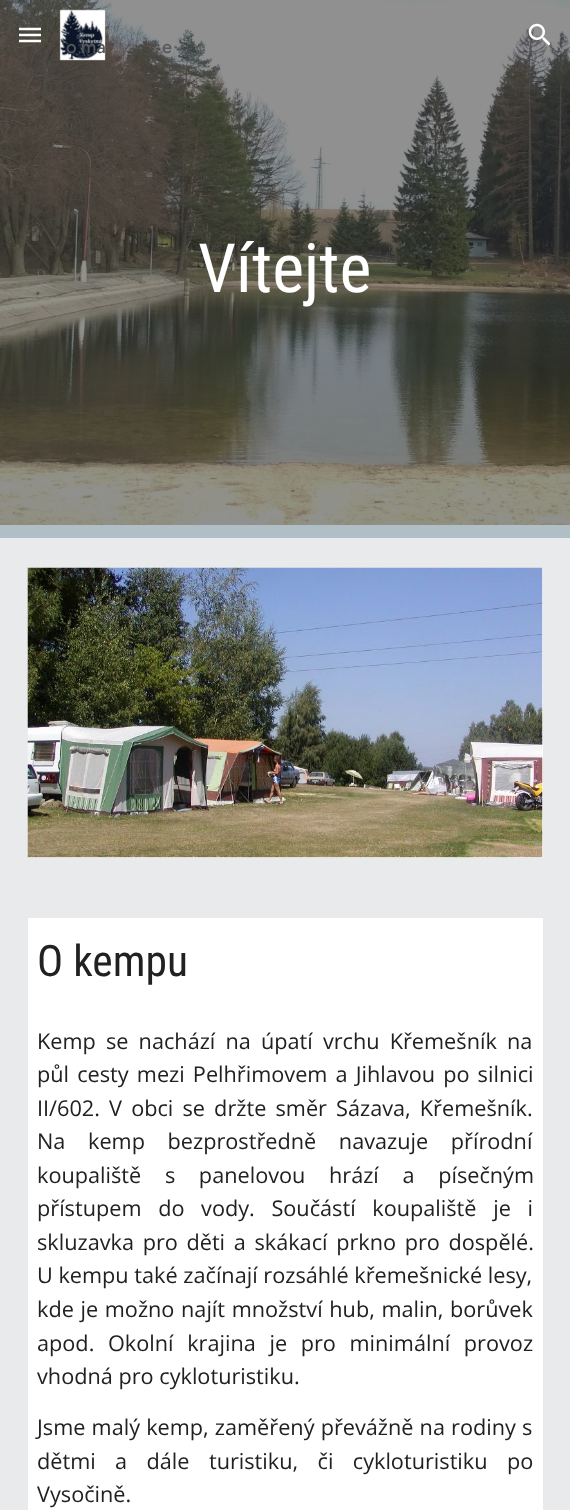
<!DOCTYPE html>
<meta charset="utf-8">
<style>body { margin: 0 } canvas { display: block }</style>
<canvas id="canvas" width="570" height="1510"></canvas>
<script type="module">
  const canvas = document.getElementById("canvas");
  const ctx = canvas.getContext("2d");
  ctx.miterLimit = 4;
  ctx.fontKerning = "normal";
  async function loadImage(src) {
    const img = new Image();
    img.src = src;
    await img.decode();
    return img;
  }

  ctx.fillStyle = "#e8eaeb";
  ctx.fillRect(0, 0, 570, 1510);
  ctx.drawImage(await loadImage("img3.png"), 0, 0, 570, 525);
  ctx.drawImage(await loadImage("img1.png"), 59, 9, 47, 52);
  ctx.font = "500 17.5px Google Sans";
  ctx.fillStyle = "#57585a";
  ctx.fillText("o ma", 66, 53);
  ctx.fillText("e", 162, 53);
  ctx.beginPath();
  ctx.moveTo(19, 29);
  ctx.lineTo(41, 29);
  ctx.moveTo(19, 35);
  ctx.lineTo(41, 35);
  ctx.moveTo(19, 41);
  ctx.lineTo(41, 41);
  ctx.strokeStyle = "#ffffff";
  ctx.lineWidth = 2.5;
  ctx.stroke();
  ctx.drawImage(await loadImage("img2.png"), 528, 23, 23, 23);
  ctx.fillStyle = "#b0bec5";
  ctx.fillRect(0, 525, 570, 13);
  ctx.font = "68px Roboto Condensed";
  ctx.fillStyle = "#ffffff";
  ctx.fillText("Vítejte", 198, 292);
  ctx.fillRect(28, 568, 515, 290);
  ctx.drawImage(await loadImage("img4.png"), 27, 567, 516, 291);
  ctx.fillRect(28, 918, 515, 592);
  ctx.font = "43.5px Roboto Condensed";
  ctx.fillStyle = "#212121";
  ctx.fillText("O kempu", 37, 976);
  ctx.wordSpacing = "4.5px";
  ctx.font = "21.7px Open Sans";
  ctx.fillText("Kemp se nachází na úpatí vrchu Křemešník na", 37, 1049);
  ctx.wordSpacing = "2.5px";
  ctx.fillText("půl cesty mezi Pelhřimovem a Jihlavou po silnici", 37, 1082);
  ctx.wordSpacing = "3.5px";
  ctx.fillText("II/602. V obci se držte směr Sázava, Křemešník.", 37, 1116);
  ctx.wordSpacing = "17px";
  ctx.fillText("Na kemp bezprostředně navazuje přírodní", 37, 1149);
  ctx.wordSpacing = "18px";
  ctx.fillText("koupaliště s panelovou hrází a písečným", 37, 1183);
  ctx.wordSpacing = "11px";
  ctx.fillText("přístupem do vody. Součástí koupaliště je i", 37, 1216);
  ctx.wordSpacing = "3px";
  ctx.fillText("skluzavka pro děti a skákací prkno pro dospělé.", 37, 1250);
  ctx.wordSpacing = "0px";
  ctx.fillText("U kempu také začínají rozsáhlé křemešnické lesy,", 37, 1283);
  ctx.wordSpacing = "1px";
  ctx.fillText("kde je možno najít množství hub, malin, borůvek", 37, 1317);
  ctx.wordSpacing = "8px";
  ctx.fillText("apod. Okolní krajina je pro minimální provoz", 37, 1351);
  ctx.wordSpacing = "0px";
  ctx.fillText("vhodná pro cykloturistiku.", 37, 1384);
  ctx.wordSpacing = "0.5px";
  ctx.fillText("Jsme malý kemp, zaměřený převážně na rodiny s", 37, 1435);
  ctx.wordSpacing = "13.75px";
  ctx.fillText("dětmi a dále turistiku, či cykloturistiku po", 37, 1469);
  ctx.wordSpacing = "0px";
  ctx.fillText("Vysočině.", 37, 1502);
</script>
